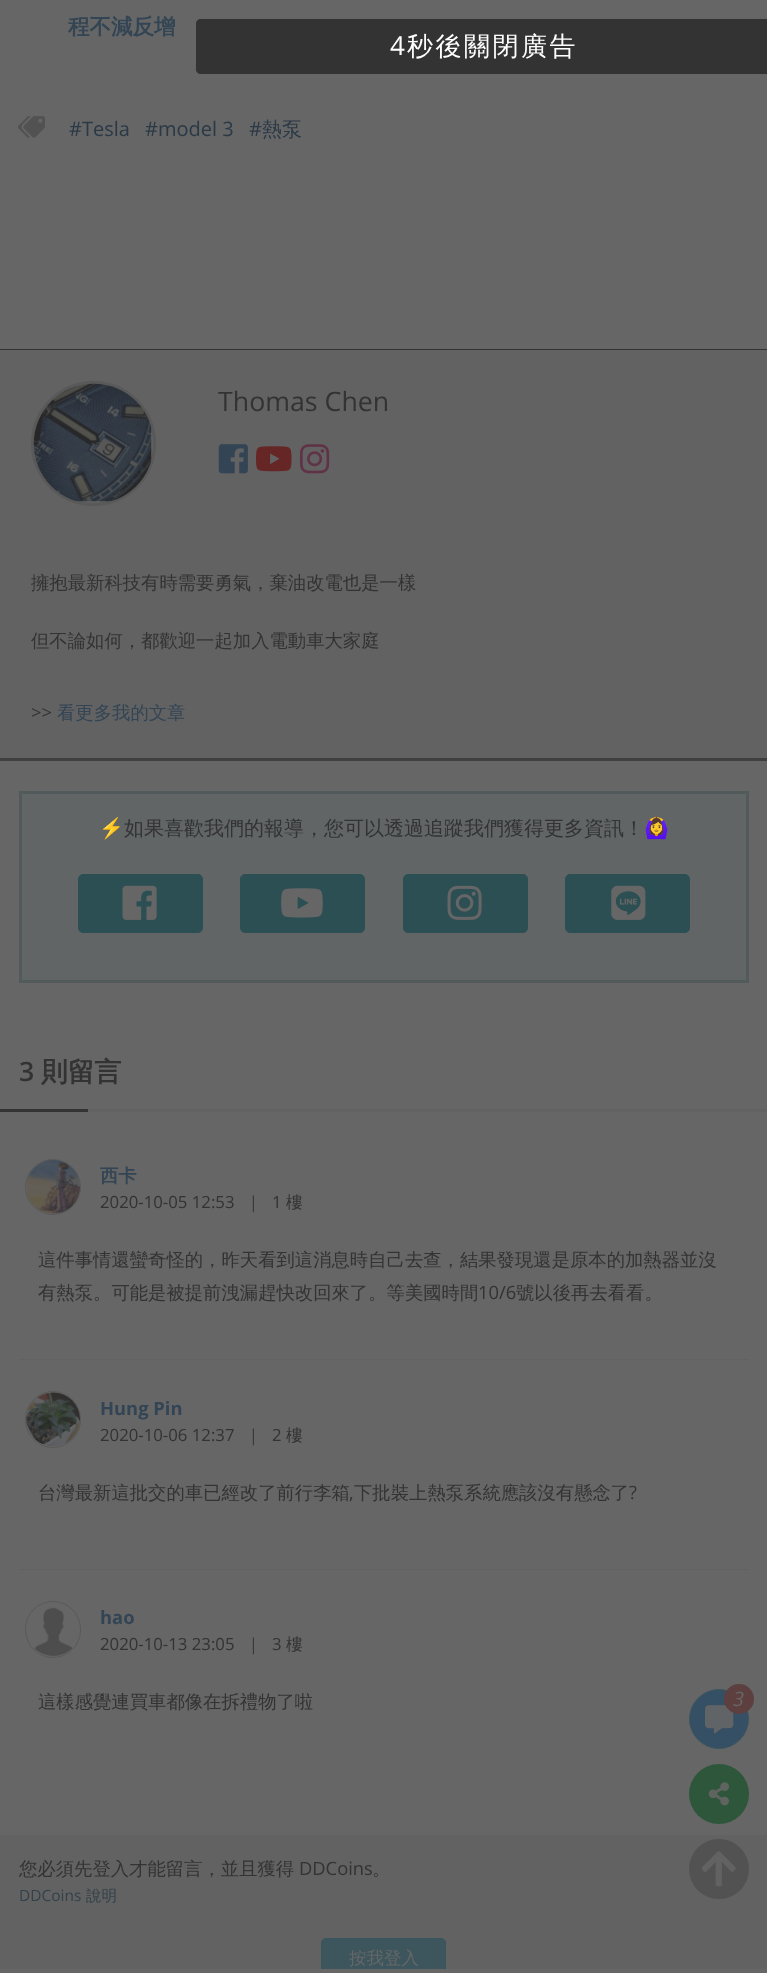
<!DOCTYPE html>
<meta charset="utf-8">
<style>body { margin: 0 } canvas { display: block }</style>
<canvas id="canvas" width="767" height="1973"></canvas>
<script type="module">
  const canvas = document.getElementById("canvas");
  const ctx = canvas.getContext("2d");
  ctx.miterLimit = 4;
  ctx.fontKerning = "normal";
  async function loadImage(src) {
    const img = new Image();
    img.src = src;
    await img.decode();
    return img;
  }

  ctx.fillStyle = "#666666";
  ctx.fillRect(0, 0, 767, 1973);
  ctx.font = "bold 21.5px WenQuanYi Zen Hei";
  ctx.fillStyle = "#334554";
  ctx.fillText("程不減反增", 68, 34);
  ctx.fillStyle = "#333333";
  ctx.beginPath();
  ctx.moveTo(201, 19);
  ctx.lineTo(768, 19);
  ctx.lineTo(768, 74);
  ctx.lineTo(201, 74);
  ctx.bezierCurveTo(198, 74, 196, 72, 196, 69);
  ctx.lineTo(196, 24);
  ctx.bezierCurveTo(196, 21, 198, 19, 201, 19);
  ctx.closePath();
  ctx.fill();
  ctx.beginPath();
  ctx.roundRect(196.5, 19.5, 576, 54, 4.5);
  ctx.strokeStyle = "#333333";
  ctx.stroke();
  ctx.letterSpacing = "2.5px";
  ctx.font = "26px Open Sans";
  ctx.fillStyle = "#ffffff";
  ctx.fillText("4", 390, 55);
  ctx.font = "500 26px WenQuanYi Zen Hei";
  ctx.fillText("秒後關閉廣告", 407, 55);
  ctx.drawImage(await loadImage("img1.png"), 18, 116, 27, 22);
  ctx.letterSpacing = "0px";
  ctx.font = "20px Open Sans";
  ctx.fillStyle = "#2a3946";
  ctx.fillText("#Tesla", 69, 136);
  ctx.fillText("#model 3", 145, 136);
  ctx.fillText("#", 249, 136);
  ctx.font = "500 20px WenQuanYi Zen Hei";
  ctx.fillText("熱泵", 262, 136);
  ctx.fillStyle = "#626262";
  ctx.fillRect(0, 350, 767, 408);
  ctx.fillStyle = "#333333";
  ctx.fillRect(0, 349, 767, 1);
  ctx.fillStyle = "#404040";
  ctx.fillRect(0, 758, 767, 3);
  ctx.beginPath();
  ctx.arc(93.5, 443.5, 61, 0, Math.PI * 2);
  ctx.strokeStyle = "#595959";
  ctx.lineWidth = 3;
  ctx.stroke();
  ctx.drawImage(await loadImage("img2.png"), 33, 383, 119, 119);
  ctx.font = "26.75px Open Sans";
  ctx.fillStyle = "#333333";
  ctx.fillText("Thomas Chen", 218, 411);
  ctx.drawImage(await loadImage("img3.png"), 218, 444, 30, 30);
  ctx.drawImage(await loadImage("img4.png"), 256, 446, 36, 26);
  ctx.drawImage(await loadImage("img5.png"), 300, 444, 30, 30);
  ctx.font = "500 18.35px WenQuanYi Zen Hei";
  ctx.fillText("擁抱最新科技有時需要勇氣，棄油改電也是一樣", 31, 589);
  ctx.fillText("但不論如何，都歡迎一起加入電動車大家庭", 31, 647);
  ctx.font = "18.35px Open Sans";
  ctx.fillText(">>", 31, 719);
  ctx.font = "500 18.35px WenQuanYi Zen Hei";
  ctx.fillStyle = "#334554";
  ctx.fillText("看更多我的文章", 57, 719);
  ctx.fillStyle = "#616566";
  ctx.beginPath();
  ctx.rect(20.5, 792.5, 727, 189);
  ctx.fill();
  ctx.strokeStyle = "#535a5b";
  ctx.stroke();
  ctx.font = "20px Noto Color Emoji";
  ctx.fillStyle = "#333333";
  ctx.fillText("⚡", 99, 835);
  ctx.font = "500 20px WenQuanYi Zen Hei";
  ctx.fillText("如果喜歡我們的報導，您可以透過追蹤我們獲得更多資訊！", 124, 835);
  ctx.font = "20px Noto Color Emoji";
  ctx.fillText("🙆‍♀", 644, 835);
  ctx.fillStyle = "#2c4f54";
  ctx.beginPath();
  ctx.roundRect(78.5, 874.5, 124, 58, 4.5);
  ctx.fill();
  ctx.strokeStyle = "#2c4f54";
  ctx.lineWidth = 1;
  ctx.stroke();
  ctx.drawImage(await loadImage("img6.png"), 122, 885, 35, 35);
  ctx.beginPath();
  ctx.roundRect(240.5, 874.5, 124, 58, 4.5);
  ctx.fill();
  ctx.stroke();
  ctx.drawImage(await loadImage("img7.png"), 281, 888, 42, 30);
  ctx.beginPath();
  ctx.roundRect(403.5, 874.5, 124, 58, 4.5);
  ctx.fill();
  ctx.stroke();
  ctx.drawImage(await loadImage("img8.png"), 447, 885, 35, 35);
  ctx.beginPath();
  ctx.roundRect(565.5, 874.5, 124, 58, 4.5);
  ctx.fill();
  ctx.stroke();
  ctx.drawImage(await loadImage("img9.png"), 611, 885, 35, 35);
  ctx.fillStyle = "#626262";
  ctx.fillRect(88, 1109, 679, 3);
  ctx.font = "600 26.75px Open Sans";
  ctx.fillStyle = "#333333";
  ctx.fillText("3", 19, 1081);
  ctx.font = "bold 26.75px WenQuanYi Zen Hei";
  ctx.fillText("則留言", 41, 1081);
  ctx.fillRect(0, 1109, 88, 3);
  ctx.fillStyle = "#626262";
  ctx.fillRect(19, 1359, 730, 1);
  ctx.beginPath();
  ctx.arc(53, 1187, 27.5, 0, Math.PI * 2);
  ctx.strokeStyle = "#595959";
  ctx.stroke();
  ctx.drawImage(await loadImage("img10.png"), 26, 1160, 54, 54);
  ctx.font = "bold 18.35px WenQuanYi Zen Hei";
  ctx.fillStyle = "#334554";
  ctx.fillText("西卡", 100, 1182);
  ctx.font = "16.75px Open Sans";
  ctx.fillStyle = "#333333";
  ctx.fillText("2020-10-05 12:53", 100, 1208);
  ctx.font = "500 16.75px WenQuanYi Zen Hei";
  ctx.fillText("｜", 245, 1208);
  ctx.font = "16.75px Open Sans";
  ctx.fillText("1", 272, 1208);
  ctx.font = "500 16.75px WenQuanYi Zen Hei";
  ctx.fillText("樓", 286, 1208);
  ctx.font = "500 18.35px WenQuanYi Zen Hei";
  ctx.fillText("這件事情還蠻奇怪的，昨天看到這消息時自己去查，結果發現還是原本的加熱器並沒", 38, 1266);
  ctx.fillText("有熱泵。可能是被提前洩漏趕快改回來了。等美國時間", 38, 1299);
  ctx.font = "18.35px Open Sans";
  ctx.fillText("10/6", 478, 1299);
  ctx.font = "500 18.35px WenQuanYi Zen Hei";
  ctx.fillText("號以後再去看看。", 516, 1299);
  ctx.fillStyle = "#626262";
  ctx.fillRect(19, 1569, 730, 1);
  ctx.beginPath();
  ctx.roundRect(25.5, 1391.5, 55, 56, 27.5);
  ctx.stroke();
  ctx.drawImage(await loadImage("img11.png"), 26, 1392, 54, 55);
  ctx.font = "bold 18.35px Open Sans";
  ctx.fillStyle = "#334554";
  ctx.fillText("Hung Pin", 100, 1415);
  ctx.font = "16.75px Open Sans";
  ctx.fillStyle = "#333333";
  ctx.fillText("2020-10-06 12:37", 100, 1441);
  ctx.font = "500 16.75px WenQuanYi Zen Hei";
  ctx.fillText("｜", 245, 1441);
  ctx.font = "16.75px Open Sans";
  ctx.fillText("2", 272, 1441);
  ctx.font = "500 16.75px WenQuanYi Zen Hei";
  ctx.fillText("樓", 286, 1441);
  ctx.font = "500 18.35px WenQuanYi Zen Hei";
  ctx.fillText("台灣最新這批交的車已經改了前行李箱", 38, 1499);
  ctx.font = "18.35px Open Sans";
  ctx.fillText(",", 349, 1499);
  ctx.font = "500 18.35px WenQuanYi Zen Hei";
  ctx.fillText("下批裝上熱泵系統應該沒有懸念了", 354, 1499);
  ctx.font = "18.35px Open Sans";
  ctx.fillText("?", 629, 1499);
  ctx.beginPath();
  ctx.roundRect(25.5, 1601.5, 55, 56, 27.5);
  ctx.stroke();
  ctx.drawImage(await loadImage("img12.png"), 34, 1607, 39, 50);
  ctx.font = "bold 18.35px Open Sans";
  ctx.fillStyle = "#334554";
  ctx.fillText("hao", 100, 1624);
  ctx.font = "16.75px Open Sans";
  ctx.fillStyle = "#333333";
  ctx.fillText("2020-10-13 23:05", 100, 1650);
  ctx.font = "500 16.75px WenQuanYi Zen Hei";
  ctx.fillText("｜", 245, 1650);
  ctx.font = "16.75px Open Sans";
  ctx.fillText("3", 272, 1650);
  ctx.font = "500 16.75px WenQuanYi Zen Hei";
  ctx.fillText("樓", 286, 1650);
  ctx.font = "500 18.35px WenQuanYi Zen Hei";
  ctx.fillText("這樣感覺連買車都像在拆禮物了啦", 38, 1708);
  ctx.fillStyle = "#354f64";
  ctx.beginPath();
  ctx.arc(719, 1719, 29.5, 0, Math.PI * 2);
  ctx.fill();
  ctx.strokeStyle = "#3d565e";
  ctx.stroke();
  ctx.drawImage(await loadImage("img13.png"), 705, 1705, 29, 29);
  ctx.fillStyle = "#5e3f3f";
  ctx.beginPath();
  ctx.arc(739, 1699, 15, 0, Math.PI * 2);
  ctx.fill();
  ctx.font = "italic 20px Open Sans";
  ctx.fillStyle = "#666666";
  ctx.fillText("3", 733, 1706);
  ctx.fillStyle = "#2e563a";
  ctx.beginPath();
  ctx.arc(719, 1794, 30, 0, Math.PI * 2);
  ctx.fill();
  ctx.drawImage(await loadImage("img14.png"), 708, 1782, 21, 24);
  ctx.fillStyle = "#626262";
  ctx.fillRect(0, 1835, 767, 134);
  ctx.font = "500 18.35px WenQuanYi Zen Hei";
  ctx.fillStyle = "#333333";
  ctx.fillText("您必須先登入才能留言，並且獲得", 19, 1875);
  ctx.font = "18.35px Open Sans";
  ctx.fillText("DDCoins", 299, 1875);
  ctx.font = "500 18.35px WenQuanYi Zen Hei";
  ctx.fillText("。", 372, 1875);
  ctx.font = "15.5px Open Sans";
  ctx.fillStyle = "#33424a";
  ctx.fillText("DDCoins", 19, 1901);
  ctx.font = "500 15.5px WenQuanYi Zen Hei";
  ctx.fillText("說明", 86, 1901);
  ctx.fillStyle = "#3d565e";
  ctx.beginPath();
  ctx.roundRect(321.5, 1938.5, 124, 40, 4.5);
  ctx.fill();
  ctx.strokeStyle = "#38545d";
  ctx.stroke();
  ctx.font = "500 17.5px WenQuanYi Zen Hei";
  ctx.fillStyle = "#666666";
  ctx.fillText("按我登入", 349, 1964);
  ctx.fillRect(321, 1969, 125, 4);
  ctx.fillStyle = "#525252";
  ctx.beginPath();
  ctx.arc(719, 1869, 30, 0, Math.PI * 2);
  ctx.fill();
  ctx.drawImage(await loadImage("img15.png"), 701, 1851, 35, 36);
</script>
